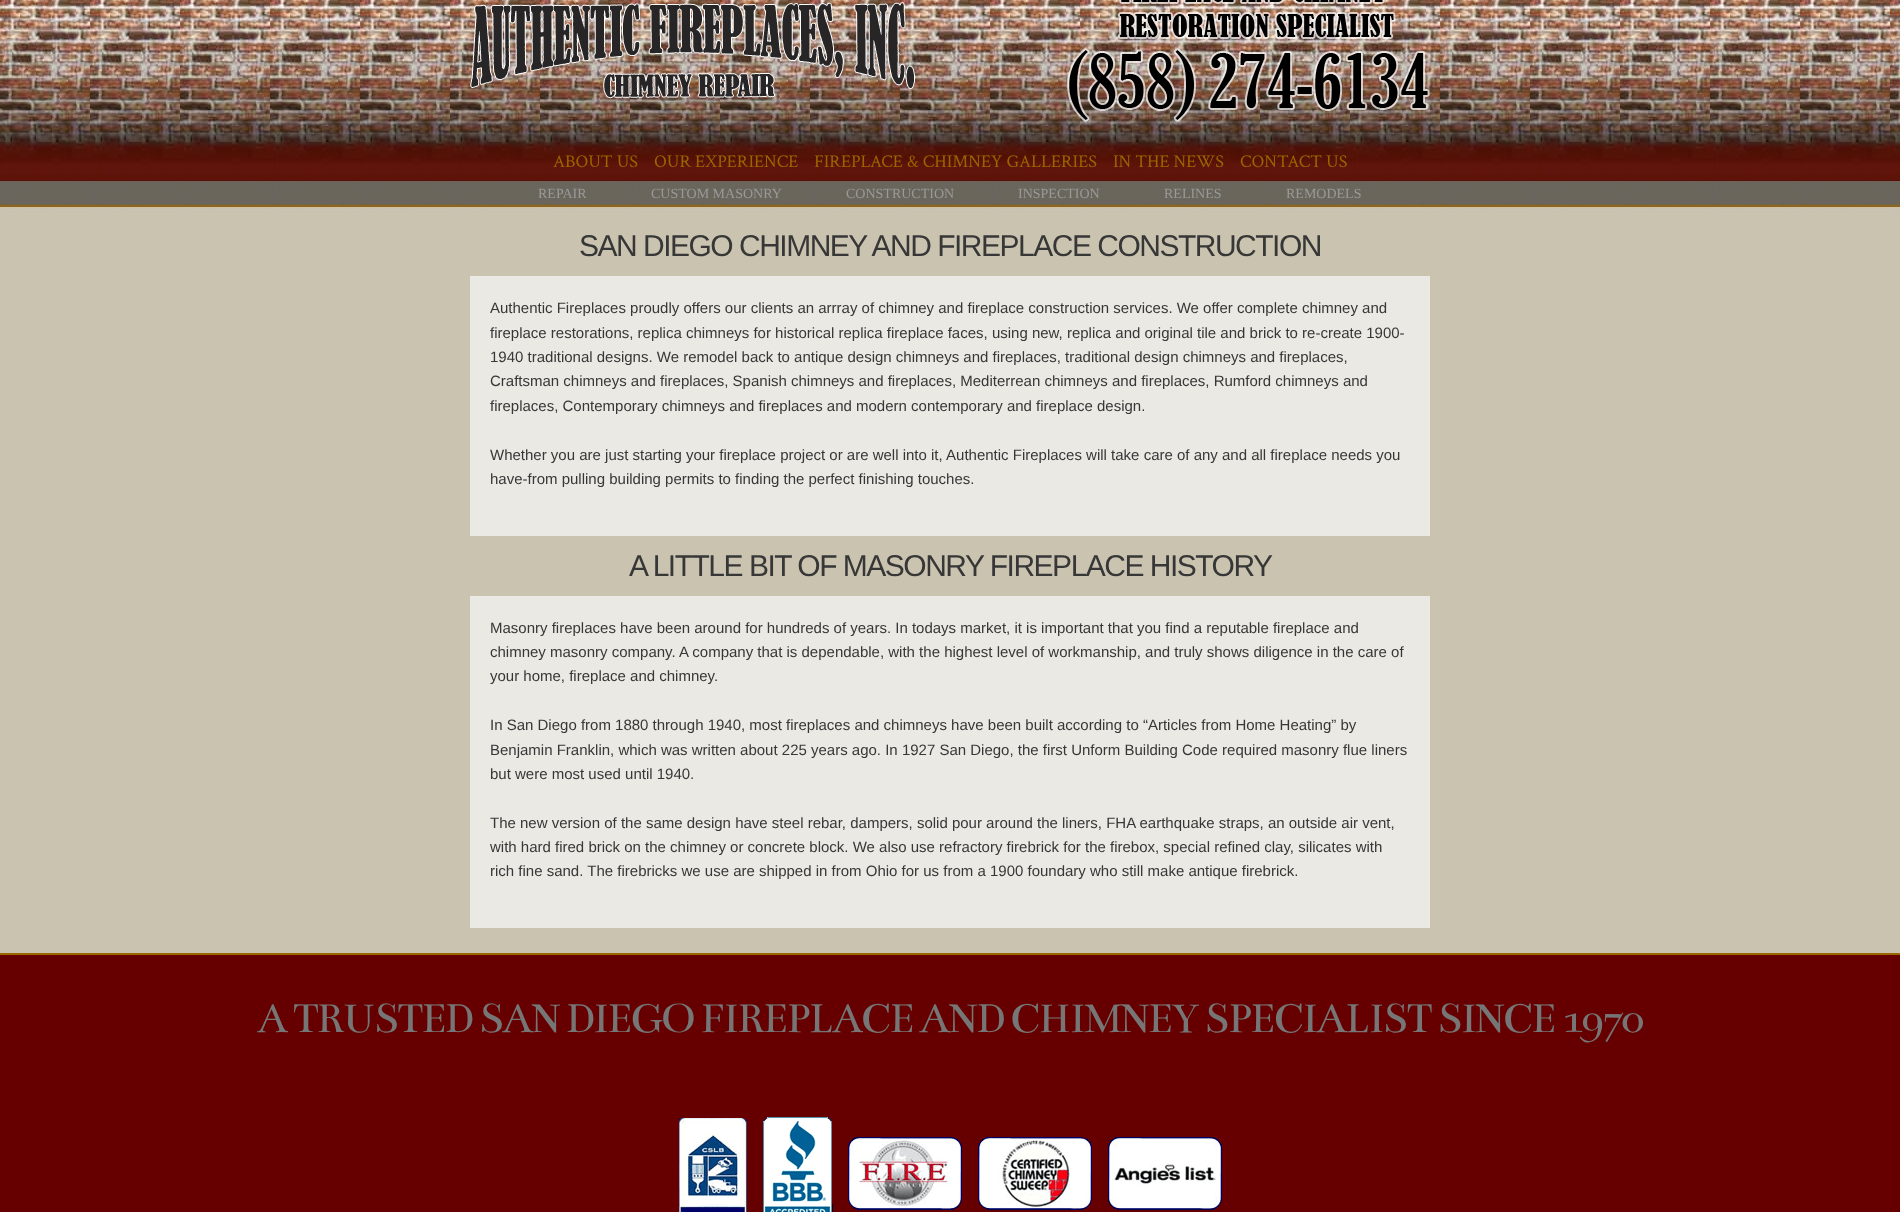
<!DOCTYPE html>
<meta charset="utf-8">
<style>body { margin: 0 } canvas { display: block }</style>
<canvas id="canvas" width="1900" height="1212"></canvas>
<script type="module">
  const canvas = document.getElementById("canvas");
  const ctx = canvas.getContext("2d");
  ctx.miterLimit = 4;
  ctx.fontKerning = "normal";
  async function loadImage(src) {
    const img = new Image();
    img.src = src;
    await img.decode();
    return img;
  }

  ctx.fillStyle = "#cac3b0";
  ctx.fillRect(0, 0, 1900, 1212);
  ctx.drawImage(await loadImage("img1.png"), 0, 0, 1900, 213);
  ctx.drawImage(await loadImage("img2.png"), 470, 2, 445, 97);
  ctx.drawImage(await loadImage("img3.png"), 1067, 0, 363, 122);
  ctx.font = "18px Crimson Text";
  ctx.fillStyle = "#996600";
  ctx.fillText("ABOUT US", 553, 167);
  ctx.fillText("OUR EXPERIENCE", 654, 167);
  ctx.fillText("FIREPLACE & CHIMNEY GALLERIES", 814, 167);
  ctx.fillText("IN THE NEWS", 1113, 167);
  ctx.fillText("CONTACT US", 1240, 167);
  ctx.font = "14px Liberation Serif";
  ctx.fillStyle = "#999999";
  ctx.fillText("REPAIR", 538, 198);
  ctx.fillText("CUSTOM MASONRY", 651, 198);
  ctx.fillText("CONSTRUCTION", 846, 198);
  ctx.fillText("INSPECTION", 1018, 198);
  ctx.fillText("RELINES", 1164, 198);
  ctx.fillText("REMODELS", 1286, 198);
  ctx.letterSpacing = "-1.5px";
  ctx.font = "30px Liberation Sans";
  ctx.fillStyle = "#373737";
  ctx.fillText("SAN DIEGO CHIMNEY AND FIREPLACE CONSTRUCTION", 579, 256);
  ctx.fillStyle = "#eae9e3";
  ctx.fillRect(470, 276, 960, 260);
  ctx.letterSpacing = "0px";
  ctx.font = "15px Liberation Sans";
  ctx.fillStyle = "#373737";
  ctx.fillText("Authentic Fireplaces proudly offers our clients an arrray of chimney and fireplace construction services. We offer complete chimney and", 490, 313);
  ctx.fillText("fireplace restorations, replica chimneys for historical replica fireplace faces, using new, replica and original tile and brick to re-create 1900-", 490, 338);
  ctx.fillText("1940 traditional designs. We remodel back to antique design chimneys and fireplaces, traditional design chimneys and fireplaces,", 490, 362);
  ctx.fillText("Craftsman chimneys and fireplaces, Spanish chimneys and fireplaces, Mediterrean chimneys and fireplaces, Rumford chimneys and", 490, 386);
  ctx.fillText("fireplaces, Contemporary chimneys and fireplaces and modern contemporary and fireplace design.", 490, 411);
  ctx.fillText("Whether you are just starting your fireplace project or are well into it, Authentic Fireplaces will take care of any and all fireplace needs you", 490, 460);
  ctx.fillText("have-from pulling building permits to finding the perfect finishing touches.", 490, 484);
  ctx.letterSpacing = "-1.5px";
  ctx.font = "30px Liberation Sans";
  ctx.fillText("A LITTLE BIT OF MASONRY FIREPLACE HISTORY", 629, 576);
  ctx.fillStyle = "#eae9e3";
  ctx.fillRect(470, 596, 960, 332);
  ctx.letterSpacing = "0px";
  ctx.font = "15px Liberation Sans";
  ctx.fillStyle = "#373737";
  ctx.fillText("Masonry fireplaces have been around for hundreds of years. In todays market, it is important that you find a reputable fireplace and", 490, 633);
  ctx.fillText("chimney masonry company. A company that is dependable, with the highest level of workmanship, and truly shows diligence in the care of", 490, 657);
  ctx.fillText("your home, fireplace and chimney.", 490, 681);
  ctx.fillText("In San Diego from 1880 through 1940, most fireplaces and chimneys have been built according to “Articles from Home Heating” by", 490, 730);
  ctx.fillText("Benjamin Franklin, which was written about 225 years ago. In 1927 San Diego, the first Unform Building Code required masonry flue liners", 490, 755);
  ctx.fillText("but were most used until 1940.", 490, 779);
  ctx.fillText("The new version of the same design have steel rebar, dampers, solid pour around the liners, FHA earthquake straps, an outside air vent,", 490, 828);
  ctx.fillText("with hard fired brick on the chimney or concrete block. We also use refractory firebrick for the firebox, special refined clay, silicates with", 490, 852);
  ctx.fillText("rich fine sand. The firebricks we use are shipped in from Ohio for us from a 1900 foundary who still make antique firebrick.", 490, 876);
  ctx.fillStyle = "#660000";
  ctx.fillRect(0, 955, 1900, 257);
  ctx.fillStyle = "#996600";
  ctx.fillRect(0, 953, 1900, 2);
  ctx.letterSpacing = "-2.25px";
  ctx.font = "45px Bentham";
  ctx.fillStyle = "#767676";
  ctx.fillText("A TRUSTED SAN DIEGO FIREPLACE AND CHIMNEY SPECIALIST SINCE 1970", 257, 1032);
  ctx.drawImage(await loadImage("img4.png"), 679, 1117, 543, 95);
</script>
